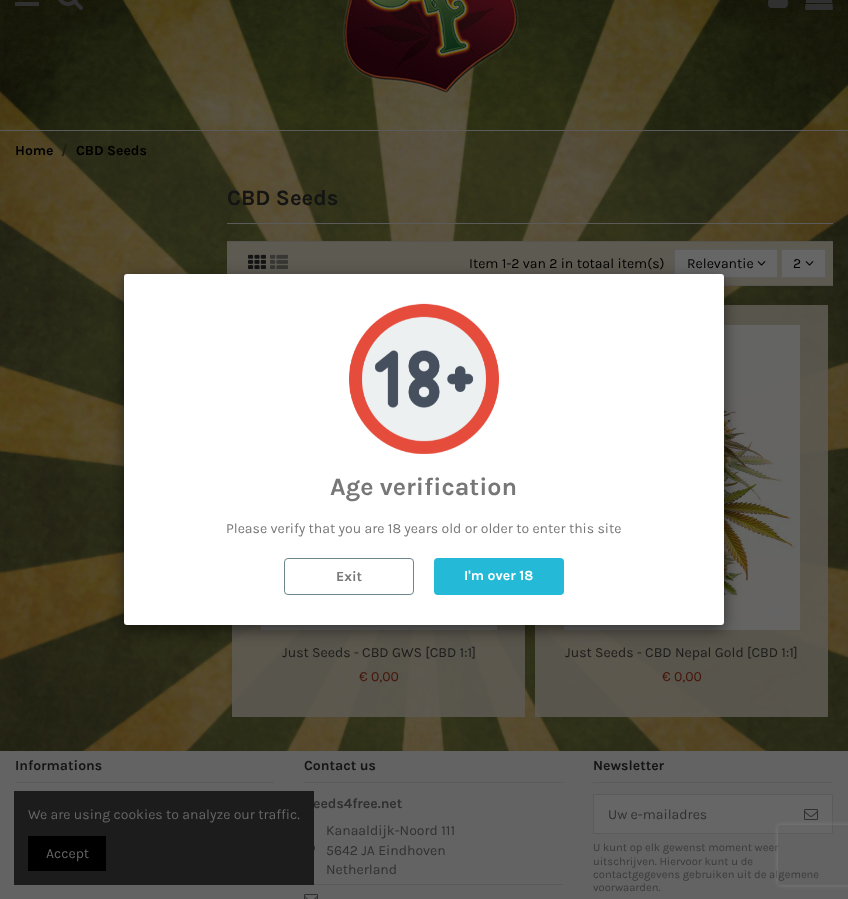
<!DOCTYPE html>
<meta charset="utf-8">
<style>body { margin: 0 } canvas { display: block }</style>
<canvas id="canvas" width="848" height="899"></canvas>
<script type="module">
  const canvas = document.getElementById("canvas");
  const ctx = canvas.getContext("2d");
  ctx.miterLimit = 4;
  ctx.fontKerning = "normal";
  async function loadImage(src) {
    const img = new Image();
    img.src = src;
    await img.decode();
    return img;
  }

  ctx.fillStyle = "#ffffff";
  ctx.fillRect(0, 0, 848, 899);
  ctx.drawImage(await loadImage("img1.png"), 0, 0, 848, 751);
  ctx.fillStyle = "#5b5b5b";
  ctx.fillRect(0, 130, 848, 1);
  ctx.fillStyle = "#303030";
  ctx.fillRect(15, 2, 24, 4);
  ctx.drawImage(await loadImage("img2.png"), 58, 0, 25, 10);
  ctx.drawImage(await loadImage("img3.png"), 342, 0, 177, 94);
  ctx.drawImage(await loadImage("img4.png"), 768, 0, 20, 8);
  ctx.drawImage(await loadImage("img5.png"), 805, 0, 28, 10);
  ctx.fillStyle = "rgba(89, 77, 77, 0.12)";
  ctx.fillRect(0, 131, 848, 620);
  ctx.font = "bold 14px Karla";
  ctx.fillStyle = "#000000";
  ctx.fillText("Home", 15, 155);
  ctx.fillStyle = "#1f1e11";
  ctx.fillText("/", 61, 155);
  ctx.fillStyle = "#000000";
  ctx.fillText("CBD Seeds", 76, 155);
  ctx.fillStyle = "#5b5b5b";
  ctx.fillRect(227, 223, 606, 1);
  ctx.font = "bold 22px Karla";
  ctx.fillStyle = "#141414";
  ctx.fillText("CBD Seeds", 227, 205);
  ctx.fillStyle = "#5d5a52";
  ctx.fillRect(227, 242, 606, 43);
  ctx.fillStyle = "#56544e";
  ctx.fillRect(227, 241, 606, 1);
  ctx.fillRect(724, 285, 109, 1);
  ctx.drawImage(await loadImage("img6.png"), 248, 254, 18, 15);
  ctx.drawImage(await loadImage("img7.png"), 270, 254, 18, 15);
  ctx.font = "14px Karla";
  ctx.fillStyle = "#000000";
  ctx.fillText("Item 1-2 van 2 in totaal item(s)", 469, 268);
  ctx.fillStyle = "#666666";
  ctx.beginPath();
  ctx.rect(674.5, 249.5, 103, 28);
  ctx.fill();
  ctx.strokeStyle = "#5b5b5b";
  ctx.stroke();
  ctx.fillStyle = "#000000";
  ctx.fillText("Relevantie", 687, 268);
  ctx.drawImage(await loadImage("img8.png"), 757, 261, 9, 5);
  ctx.fillStyle = "#666666";
  ctx.beginPath();
  ctx.rect(781.5, 249.5, 44, 28);
  ctx.fill();
  ctx.stroke();
  ctx.fillStyle = "#000000";
  ctx.fillText("2", 793, 268);
  ctx.drawImage(await loadImage("img8.png"), 805, 261, 9, 5);
  ctx.fillStyle = "rgba(93, 90, 82, 0.9)";
  ctx.fillRect(232, 625, 293, 92);
  ctx.drawImage(await loadImage("img9.png"), 261, 625, 236, 5);
  ctx.fillStyle = "#1b1b1a";
  ctx.fillText("Just Seeds - CBD GWS [CBD 1:1]", 282, 657);
  ctx.fillStyle = "#471408";
  ctx.fillText("€ 0,00", 359, 681);
  ctx.fillStyle = "rgba(93, 90, 82, 0.9)";
  ctx.fillRect(535, 305, 293, 412);
  ctx.drawImage(await loadImage("img10.png"), 564, 325, 236, 305);
  ctx.fillStyle = "#1b1b1a";
  ctx.fillText("Just Seeds - CBD Nepal Gold [CBD 1:1]", 565, 657);
  ctx.fillStyle = "#471408";
  ctx.fillText("€ 0,00", 662, 681);
  ctx.fillStyle = "#636363";
  ctx.fillRect(0, 751, 848, 148);
  ctx.fillStyle = "rgba(0, 0, 0, 0.5)";
  ctx.filter = "blur(7.5px)";
  ctx.beginPath();
  ctx.roundRect(124, 279, 600, 351, 3);
  ctx.fill();
  ctx.filter = "none";
  ctx.fillStyle = "#ffffff";
  ctx.beginPath();
  ctx.roundRect(124, 274, 600, 351, 3);
  ctx.fill();
  ctx.drawImage(await loadImage("img11.png"), 349, 303, 150, 151);
  ctx.font = "bold 25px Karla";
  ctx.fillStyle = "#777777";
  ctx.fillText("Age verification", 330, 495);
  ctx.font = "14px Karla";
  ctx.fillText("Please verify that you are 18 years old or older to enter this site", 226, 533);
  ctx.beginPath();
  ctx.roundRect(284.5, 558.5, 129, 36, 3.5);
  ctx.strokeStyle = "#6c868e";
  ctx.stroke();
  ctx.font = "bold 14px Karla";
  ctx.fillText("Exit", 336, 581);
  ctx.fillStyle = "#24b9d7";
  ctx.beginPath();
  ctx.roundRect(434, 558, 130, 37, 4);
  ctx.fill();
  ctx.fillStyle = "#ffffff";
  ctx.fillText("I'm over 18", 464, 580);
  ctx.fillStyle = "#5b5b5b";
  ctx.fillRect(15, 782, 259, 1);
  ctx.fillStyle = "#141414";
  ctx.fillText("Informations", 15, 770);
  ctx.fillStyle = "#5b5b5b";
  ctx.fillRect(304, 782, 259, 1);
  ctx.fillStyle = "#141414";
  ctx.fillText("Contact us", 304, 770);
  ctx.fillStyle = "#303030";
  ctx.fillText("eeds4free.net", 313, 808);
  ctx.drawImage(await loadImage("img12.png"), 314, 845, 1, 6);
  ctx.font = "14px Karla";
  ctx.fillText("Kanaaldijk-Noord 111", 326, 835);
  ctx.fillText("5642 JA Eindhoven", 326, 855);
  ctx.fillText("Netherland", 326, 874);
  ctx.fillStyle = "#5a5a5a";
  ctx.fillRect(314, 884, 249, 1);
  ctx.drawImage(await loadImage("img13.png"), 304, 894, 14, 5);
  ctx.fillStyle = "#5b5b5b";
  ctx.fillRect(593, 782, 240, 1);
  ctx.font = "bold 14px Karla";
  ctx.fillStyle = "#141414";
  ctx.fillText("Newsletter", 593, 770);
  ctx.fillStyle = "#666666";
  ctx.beginPath();
  ctx.rect(593.5, 794.5, 239, 39);
  ctx.fill();
  ctx.strokeStyle = "#5b5b5b";
  ctx.stroke();
  ctx.font = "14px Karla";
  ctx.fillStyle = "#303030";
  ctx.fillText("Uw e-mailadres", 608, 819);
  ctx.drawImage(await loadImage("img14.png"), 804, 809, 14, 11);
  ctx.font = "11.2px Karla";
  ctx.fillStyle = "#3a3a3a";
  ctx.fillText("U kunt op elk gewenst moment weer", 593, 851);
  ctx.fillText("uitschrijven. Hiervoor kunt u de", 593, 865);
  ctx.fillText("contactgegevens gebruiken uit de algemene", 593, 878);
  ctx.fillText("voorwaarden.", 593, 891);
  ctx.save();
  ctx.beginPath();
  ctx.moveTo(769, 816);
  ctx.lineTo(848, 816);
  ctx.lineTo(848, 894);
  ctx.lineTo(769, 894);
  ctx.closePath();
  ctx.moveTo(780, 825);
  ctx.lineTo(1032, 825);
  ctx.bezierCurveTo(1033, 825, 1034, 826, 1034, 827);
  ctx.lineTo(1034, 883);
  ctx.bezierCurveTo(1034, 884, 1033, 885, 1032, 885);
  ctx.lineTo(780, 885);
  ctx.bezierCurveTo(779, 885, 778, 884, 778, 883);
  ctx.lineTo(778, 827);
  ctx.bezierCurveTo(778, 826, 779, 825, 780, 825);
  ctx.closePath();
  ctx.clip("evenodd");
  ctx.fillStyle = "#808080";
  ctx.filter = "blur(2.5px)";
  ctx.beginPath();
  ctx.roundRect(778, 825, 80, 60, 2);
  ctx.fill();
  ctx.filter = "none";
  ctx.restore();
  ctx.fillStyle = "#1c1c1c";
  ctx.fillRect(14, 791, 300, 94);
  ctx.font = "14px Karla";
  ctx.fillStyle = "#666666";
  ctx.fillText("We are using cookies to analyze our traffic.", 28, 819);
  ctx.fillStyle = "#000000";
  ctx.fillRect(28, 836, 78, 35);
  ctx.fillStyle = "#666666";
  ctx.fillText("Accept", 46, 858);
</script>
